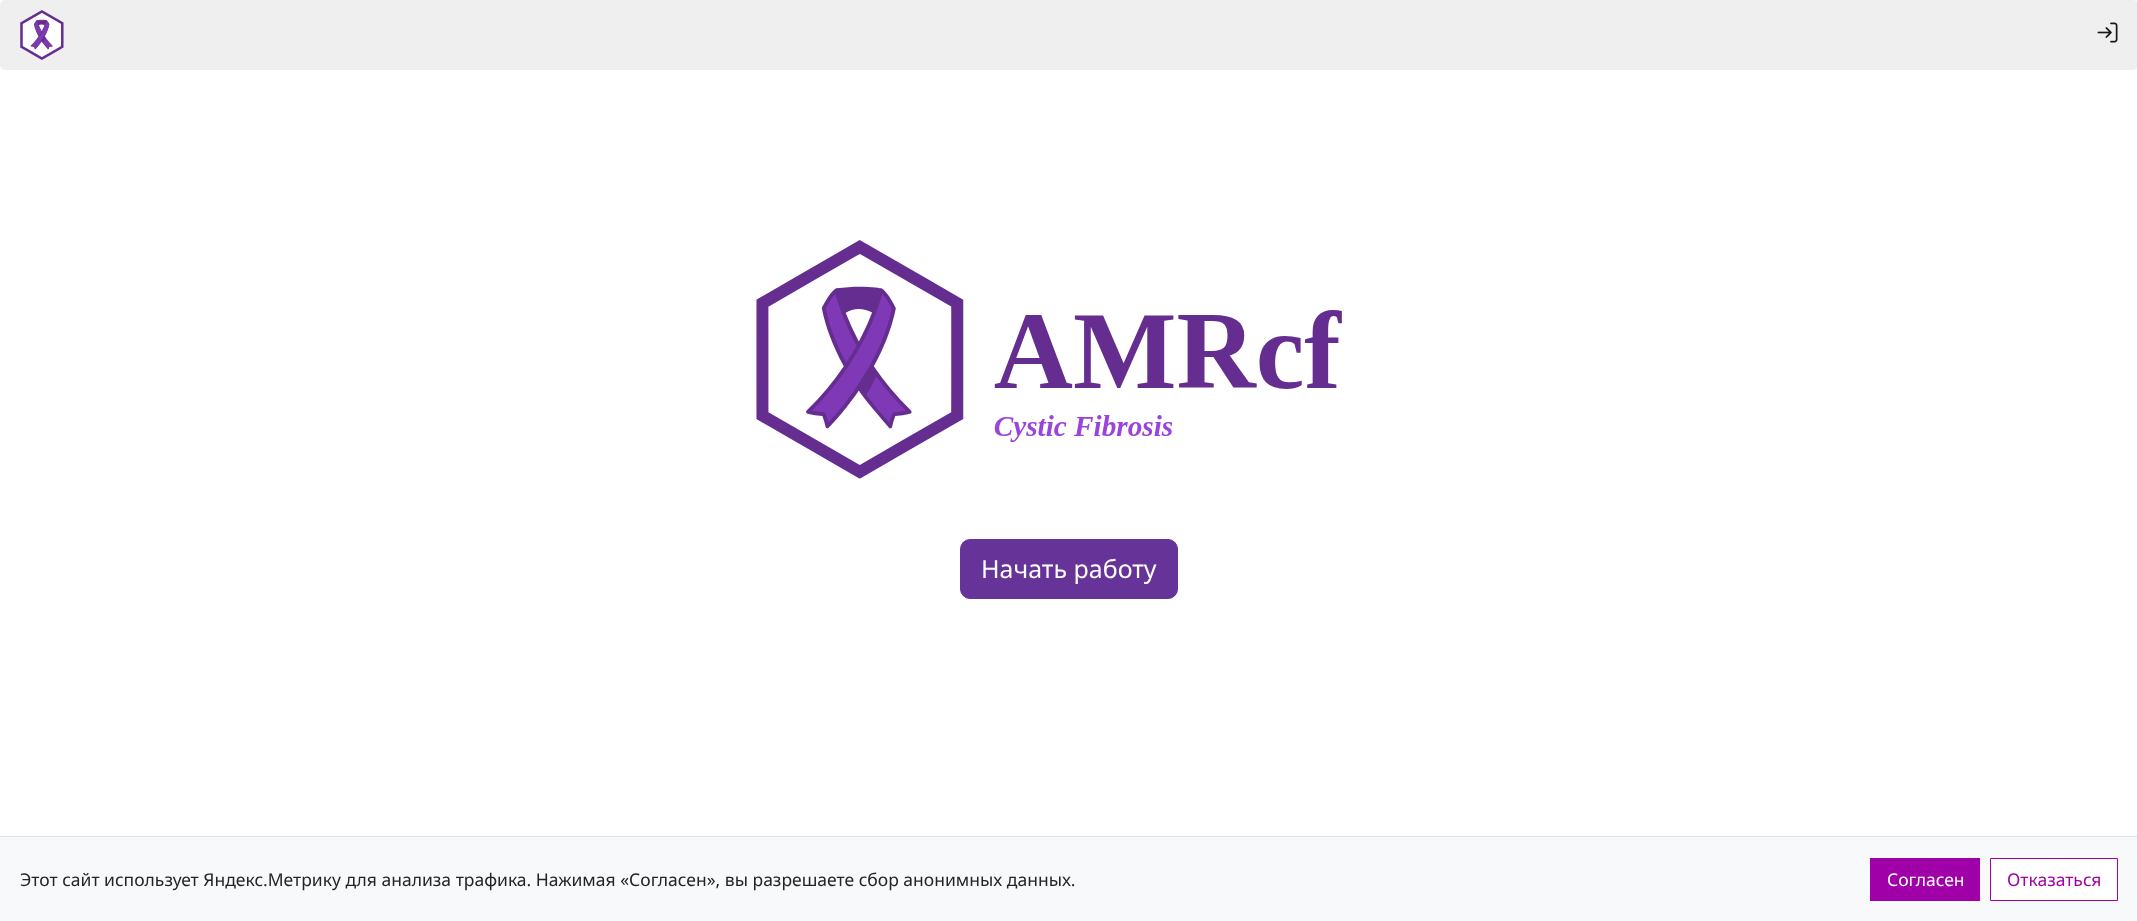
<!DOCTYPE html>
<meta charset="utf-8">
<style>body { margin: 0 } canvas { display: block }</style>
<canvas id="canvas" width="2137" height="921"></canvas>
<script type="module">
  const canvas = document.getElementById("canvas");
  const ctx = canvas.getContext("2d");
  ctx.miterLimit = 4;
  ctx.fontKerning = "normal";
  async function loadImage(src) {
    const img = new Image();
    img.src = src;
    await img.decode();
    return img;
  }

  ctx.fillStyle = "#ffffff";
  ctx.fillRect(0, 0, 2137, 921);
  ctx.fillStyle = "#efefef";
  ctx.beginPath();
  ctx.roundRect(0, 0, 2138, 70, 5);
  ctx.fill();
  ctx.drawImage(await loadImage("img1.png"), 20, 10, 44, 50);
  ctx.drawImage(await loadImage("img2.png"), 2097, 22, 21, 21);
  ctx.drawImage(await loadImage("img3.png"), 756, 240, 586, 239);
  ctx.fillStyle = "#663399";
  ctx.beginPath();
  ctx.roundRect(960.5, 539.5, 217, 59, 9.5);
  ctx.fill();
  ctx.strokeStyle = "#663399";
  ctx.stroke();
  ctx.font = "25px Noto Sans";
  ctx.fillStyle = "#ffffff";
  ctx.fillText("Начать работу", 981, 578);
  ctx.fillStyle = "#f8f9fa";
  ctx.fillRect(0, 837, 2137, 84);
  ctx.fillStyle = "#dee2e6";
  ctx.fillRect(0, 836, 2137, 1);
  ctx.font = "17.5px Noto Sans";
  ctx.fillStyle = "#212529";
  ctx.fillText("Этот сайт использует Яндекс.Метрику для анализа трафика. Нажимая «Согласен», вы разрешаете сбор анонимных данных.", 20, 886);
  ctx.fillStyle = "#9f00a7";
  ctx.fillRect(1870, 858, 110, 43);
  ctx.fillStyle = "#ffffff";
  ctx.fillText("Согласен", 1887, 886);
  ctx.beginPath();
  ctx.rect(1990.5, 858.5, 127, 42);
  ctx.fill();
  ctx.strokeStyle = "#9f00a7";
  ctx.stroke();
  ctx.fillStyle = "#9f00a7";
  ctx.fillText("Отказаться", 2007, 886);
</script>
